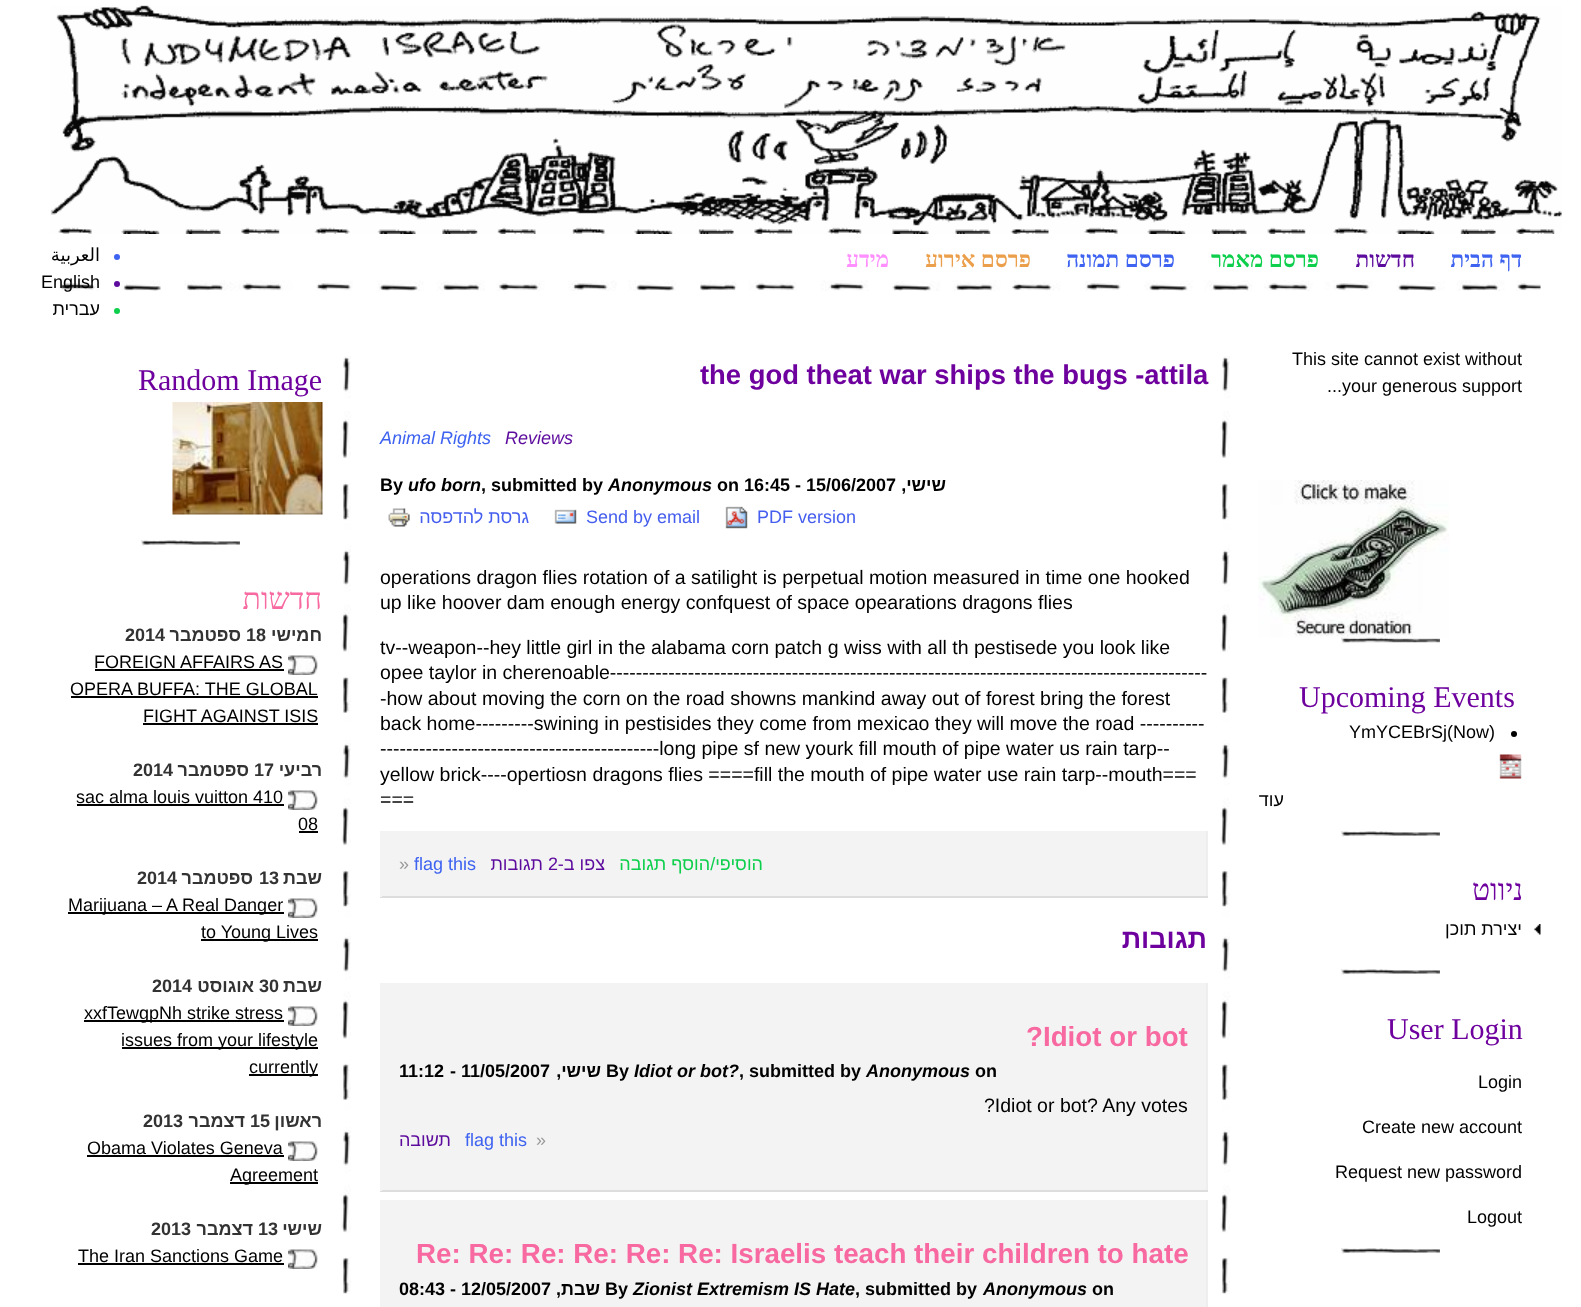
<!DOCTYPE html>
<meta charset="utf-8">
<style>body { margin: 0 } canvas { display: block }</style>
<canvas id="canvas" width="1581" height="1307"></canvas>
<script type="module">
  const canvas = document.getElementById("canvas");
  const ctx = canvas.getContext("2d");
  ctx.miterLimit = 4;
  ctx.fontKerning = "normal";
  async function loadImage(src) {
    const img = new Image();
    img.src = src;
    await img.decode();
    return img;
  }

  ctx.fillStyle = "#ffffff";
  ctx.fillRect(0, 0, 1581, 1307);
  ctx.drawImage(await loadImage("img1.png"), 50, 5, 1512, 229);
  ctx.direction = "rtl";
  ctx.font = "18px DejaVu Sans";
  ctx.fillStyle = "#000000";
  ctx.fillText("العربية", 100, 261);
  ctx.fillStyle = "#3e63f0";
  ctx.beginPath();
  ctx.arc(117, 257, 3, 0, Math.PI * 2);
  ctx.fill();
  ctx.drawImage(await loadImage("img2.png"), 59, 280, 1482, 11);
  ctx.direction = "ltr";
  ctx.font = "18px Liberation Sans";
  ctx.fillStyle = "#000000";
  ctx.fillText("English", 41, 288);
  ctx.fillStyle = "#5d0b9d";
  ctx.beginPath();
  ctx.arc(117, 284, 3, 0, Math.PI * 2);
  ctx.fill();
  ctx.direction = "rtl";
  ctx.fillStyle = "#000000";
  ctx.fillText("עברית", 100, 315);
  ctx.fillStyle = "#0dcf4c";
  ctx.beginPath();
  ctx.arc(117, 311, 3, 0, Math.PI * 2);
  ctx.fill();
  ctx.font = "bold 22.5px Liberation Serif";
  ctx.fillStyle = "#ff8fff";
  ctx.fillText("מידע", 889, 267);
  ctx.fillStyle = "#eb9f4b";
  ctx.fillText("פרסם אירוע", 1031, 267);
  ctx.fillStyle = "#3e63f0";
  ctx.fillText("פרסם תמונה", 1175, 267);
  ctx.fillStyle = "#0dcf4c";
  ctx.fillText("פרסם מאמר", 1319, 267);
  ctx.fillStyle = "#5d0b9d";
  ctx.fillText("חדשות", 1415, 267);
  ctx.fillStyle = "#3e63f0";
  ctx.fillText("דף הבית", 1522, 267);
  ctx.direction = "ltr";
  ctx.font = "30px Liberation Serif";
  ctx.fillStyle = "#6e009e";
  ctx.fillText("Random Image", 138, 390);
  ctx.drawImage(await loadImage("img3.png"), 172, 402, 151, 113);
  ctx.drawImage(await loadImage("img4.png"), 141, 540, 99, 6);
  ctx.direction = "rtl";
  ctx.fillStyle = "#f769a0";
  ctx.fillText("חדשות", 322, 609);
  ctx.direction = "ltr";
  ctx.font = "bold 18px Liberation Sans";
  ctx.fillStyle = "#333333";
  ctx.fillText("2014", 125, 641);
  ctx.direction = "rtl";
  ctx.fillText("ספטמבר", 241, 641);
  ctx.direction = "ltr";
  ctx.fillText("18", 246, 641);
  ctx.direction = "rtl";
  ctx.fillText("חמישי", 322, 641);
  ctx.direction = "ltr";
  ctx.font = "18px Liberation Sans";
  ctx.fillStyle = "#000000";
  ctx.fillText("FOREIGN AFFAIRS AS", 94, 668);
  ctx.fillRect(95, 669, 189, 2);
  ctx.drawImage(await loadImage("img5.png"), 288, 655, 30, 20);
  ctx.fillText("OPERA BUFFA: THE GLOBAL", 70, 695);
  ctx.fillRect(71, 696, 247, 2);
  ctx.fillText("FIGHT AGAINST ISIS", 143, 722);
  ctx.fillRect(143, 723, 175, 2);
  ctx.font = "bold 18px Liberation Sans";
  ctx.fillStyle = "#333333";
  ctx.fillText("2014", 133, 776);
  ctx.direction = "rtl";
  ctx.fillText("ספטמבר", 249, 776);
  ctx.direction = "ltr";
  ctx.fillText("17", 254, 776);
  ctx.direction = "rtl";
  ctx.fillText("רביעי", 322, 776);
  ctx.direction = "ltr";
  ctx.font = "18px Liberation Sans";
  ctx.fillStyle = "#000000";
  ctx.fillText("sac alma louis vuitton 410", 76, 803);
  ctx.fillRect(77, 804, 207, 2);
  ctx.drawImage(await loadImage("img5.png"), 288, 790, 30, 20);
  ctx.fillText("08", 298, 830);
  ctx.fillRect(299, 831, 19, 2);
  ctx.font = "bold 18px Liberation Sans";
  ctx.fillStyle = "#333333";
  ctx.fillText("2014", 137, 884);
  ctx.direction = "rtl";
  ctx.fillText("ספטמבר", 253, 884);
  ctx.direction = "ltr";
  ctx.fillText("13", 259, 884);
  ctx.direction = "rtl";
  ctx.fillText("שבת", 322, 884);
  ctx.fillStyle = "#000000";
  ctx.fillRect(68, 912, 216, 2);
  ctx.direction = "ltr";
  ctx.font = "18px Liberation Sans";
  ctx.fillText("Marijuana – A Real Danger", 68, 911);
  ctx.drawImage(await loadImage("img5.png"), 288, 898, 30, 20);
  ctx.fillRect(201, 939, 117, 2);
  ctx.fillText("to Young Lives", 201, 938);
  ctx.font = "bold 18px Liberation Sans";
  ctx.fillStyle = "#333333";
  ctx.fillText("2014", 152, 992);
  ctx.direction = "rtl";
  ctx.fillText("אוגוסט", 254, 992);
  ctx.direction = "ltr";
  ctx.fillText("30", 259, 992);
  ctx.direction = "rtl";
  ctx.fillText("שבת", 322, 992);
  ctx.fillStyle = "#000000";
  ctx.fillRect(84, 1020, 200, 2);
  ctx.direction = "ltr";
  ctx.font = "18px Liberation Sans";
  ctx.fillText("xxfTewgpNh strike stress", 84, 1019);
  ctx.drawImage(await loadImage("img5.png"), 288, 1006, 30, 20);
  ctx.fillRect(122, 1047, 196, 2);
  ctx.fillText("issues from your lifestyle", 121, 1046);
  ctx.fillRect(249, 1074, 69, 2);
  ctx.fillText("currently", 249, 1073);
  ctx.font = "bold 18px Liberation Sans";
  ctx.fillStyle = "#333333";
  ctx.fillText("2013", 143, 1127);
  ctx.direction = "rtl";
  ctx.fillText("דצמבר", 245, 1127);
  ctx.direction = "ltr";
  ctx.fillText("15", 250, 1127);
  ctx.direction = "rtl";
  ctx.fillText("ראשון", 322, 1127);
  ctx.direction = "ltr";
  ctx.font = "18px Liberation Sans";
  ctx.fillStyle = "#000000";
  ctx.fillText("Obama Violates Geneva", 87, 1154);
  ctx.fillRect(87, 1155, 197, 2);
  ctx.drawImage(await loadImage("img5.png"), 288, 1141, 30, 20);
  ctx.fillRect(230, 1182, 88, 2);
  ctx.fillText("Agreement", 230, 1181);
  ctx.font = "bold 18px Liberation Sans";
  ctx.fillStyle = "#333333";
  ctx.fillText("2013", 151, 1235);
  ctx.direction = "rtl";
  ctx.fillText("דצמבר", 253, 1235);
  ctx.direction = "ltr";
  ctx.fillText("13", 258, 1235);
  ctx.direction = "rtl";
  ctx.fillText("שישי", 322, 1235);
  ctx.direction = "ltr";
  ctx.font = "18px Liberation Sans";
  ctx.fillStyle = "#000000";
  ctx.fillText("The Iran Sanctions Game", 78, 1262);
  ctx.fillRect(78, 1263, 206, 2);
  ctx.drawImage(await loadImage("img5.png"), 288, 1249, 30, 20);
  ctx.drawImage(await loadImage("img6.png"), 341, 356, 10, 938);
  ctx.font = "bold 27.4px Liberation Sans";
  ctx.fillStyle = "#6e009e";
  ctx.fillText("the god theat war ships the bugs -attila", 700, 384);
  ctx.font = "italic 18px Liberation Sans";
  ctx.fillStyle = "#3e63f0";
  ctx.fillText("Animal Rights", 380, 444);
  ctx.fillStyle = "#5d0b9d";
  ctx.fillText("Reviews", 505, 444);
  ctx.font = "bold 18px Liberation Sans";
  ctx.fillStyle = "#000000";
  ctx.fillText("By", 380, 491);
  ctx.font = "italic bold 18px Liberation Sans";
  ctx.fillText("ufo born", 408, 491);
  ctx.font = "bold 18px Liberation Sans";
  ctx.fillText(", submitted by", 481, 491);
  ctx.font = "italic bold 18px Liberation Sans";
  ctx.fillText("Anonymous", 608, 491);
  ctx.font = "bold 18px Liberation Sans";
  ctx.fillText("on 16:45 - 15/06/2007", 717, 491);
  ctx.direction = "rtl";
  ctx.fillText("שישי,", 946, 491);
  ctx.drawImage(await loadImage("img7.png"), 388, 508, 22, 19);
  ctx.font = "18px Liberation Sans";
  ctx.fillStyle = "#455eee";
  ctx.fillText("גרסת להדפסה", 529, 523);
  ctx.drawImage(await loadImage("img8.png"), 554, 509, 23, 15);
  ctx.direction = "ltr";
  ctx.fillText("Send by email", 586, 523);
  ctx.drawImage(await loadImage("img9.png"), 725, 506, 23, 23);
  ctx.fillText("PDF version", 757, 523);
  ctx.font = "19.5px Liberation Sans";
  ctx.fillStyle = "#000000";
  ctx.fillText("operations dragon flies rotation of a satilight is perpetual motion measured in time one hooked", 380, 584);
  ctx.fillText("up like hoover dam enough energy confquest of space opearations dragons flies", 380, 609);
  ctx.fillText("tv--weapon--hey little girl in the alabama corn patch g wiss with all th pestisede you look like", 380, 654);
  ctx.fillText("opee taylor in cherenoable--------------------------------------------------------------------------------------------", 380, 679);
  ctx.fillText("-how about moving the corn on the road showns mankind away out of forest bring the forest", 380, 705);
  ctx.fillText("back home---------swining in pestisides they come from mexicao they will move the road ----------", 380, 730);
  ctx.fillText("-------------------------------------------long pipe sf new yourk fill mouth of pipe water us rain tarp--", 380, 755);
  ctx.fillText("yellow brick----opertiosn dragons flies ====fill the mouth of pipe water use rain tarp--mouth===", 380, 781);
  ctx.fillText("===", 380, 806);
  ctx.fillStyle = "#f3f3f3";
  ctx.fillRect(382, 831, 824, 65);
  ctx.fillStyle = "#eeeeee";
  ctx.fillRect(1206, 831, 2, 66);
  ctx.fillStyle = "#dddddd";
  ctx.fillRect(380, 896, 828, 2);
  ctx.fillStyle = "#f3f3f3";
  ctx.fillRect(380, 831, 2, 66);
  ctx.font = "18px Liberation Sans";
  ctx.fillStyle = "#999999";
  ctx.fillText("»", 399, 870);
  ctx.fillStyle = "#3e63f0";
  ctx.fillText("flag this", 414, 870);
  ctx.direction = "rtl";
  ctx.fillStyle = "#5d0b9d";
  ctx.fillText("תגובות", 543, 870);
  ctx.direction = "ltr";
  ctx.fillText("2", 548, 870);
  ctx.direction = "rtl";
  ctx.fillText("צפו ב-", 605, 870);
  ctx.fillStyle = "#0dcf4c";
  ctx.fillText("הוסיפי/הוסף תגובה", 763, 870);
  ctx.font = "bold 27px Liberation Sans";
  ctx.fillStyle = "#6e009e";
  ctx.fillText("תגובות", 1207, 948);
  ctx.fillStyle = "#f3f3f3";
  ctx.fillRect(382, 983, 824, 207);
  ctx.fillStyle = "#eeeeee";
  ctx.fillRect(1206, 983, 2, 208);
  ctx.fillStyle = "#dddddd";
  ctx.fillRect(380, 1190, 828, 2);
  ctx.fillStyle = "#f3f3f3";
  ctx.fillRect(380, 983, 2, 208);
  ctx.direction = "ltr";
  ctx.font = "bold 27.75px Liberation Sans";
  ctx.fillStyle = "#f769a0";
  ctx.fillText("?Idiot or bot", 1026, 1046);
  ctx.font = "bold 18px Liberation Sans";
  ctx.fillStyle = "#000000";
  ctx.fillText("11:12", 399, 1077);
  ctx.fillText("- 11/05/2007", 450, 1077);
  ctx.direction = "rtl";
  ctx.fillText("שישי,", 601, 1077);
  ctx.direction = "ltr";
  ctx.fillText("By", 606, 1077);
  ctx.font = "italic bold 18px Liberation Sans";
  ctx.fillText("Idiot or bot?", 634, 1077);
  ctx.font = "bold 18px Liberation Sans";
  ctx.fillText(", submitted by", 739, 1077);
  ctx.font = "italic bold 18px Liberation Sans";
  ctx.fillText("Anonymous", 866, 1077);
  ctx.font = "bold 18px Liberation Sans";
  ctx.fillText("on", 975, 1077);
  ctx.font = "19.5px Liberation Sans";
  ctx.fillText("?Idiot or bot? Any votes", 984, 1112);
  ctx.direction = "rtl";
  ctx.font = "18px Liberation Sans";
  ctx.fillStyle = "#5d0b9d";
  ctx.fillText("תשובה", 451, 1146);
  ctx.direction = "ltr";
  ctx.fillStyle = "#3e63f0";
  ctx.fillText("flag this", 465, 1146);
  ctx.fillStyle = "#999999";
  ctx.fillText("»", 536, 1146);
  ctx.fillStyle = "#f3f3f3";
  ctx.fillRect(380, 1200, 826, 107);
  ctx.fillStyle = "#eeeeee";
  ctx.fillRect(1206, 1200, 2, 107);
  ctx.font = "bold 27.75px Liberation Sans";
  ctx.fillStyle = "#f769a0";
  ctx.fillText("Re: Re: Re: Re: Re: Re: Israelis teach their children to hate", 416, 1263);
  ctx.font = "bold 18px Liberation Sans";
  ctx.fillStyle = "#000000";
  ctx.fillText("08:43 - 12/05/2007", 399, 1295);
  ctx.direction = "rtl";
  ctx.fillText("שבת,", 600, 1295);
  ctx.direction = "ltr";
  ctx.fillText("By", 605, 1295);
  ctx.font = "italic bold 18px Liberation Sans";
  ctx.fillText("Zionist Extremism IS Hate", 633, 1295);
  ctx.font = "bold 18px Liberation Sans";
  ctx.fillText(", submitted by", 855, 1295);
  ctx.font = "italic bold 18px Liberation Sans";
  ctx.fillText("Anonymous", 983, 1295);
  ctx.font = "bold 18px Liberation Sans";
  ctx.fillText("on", 1092, 1295);
  ctx.drawImage(await loadImage("img10.png"), 1220, 356, 10, 938);
  ctx.font = "18px Liberation Sans";
  ctx.fillText("This site cannot exist without", 1292, 365);
  ctx.fillText("...your generous support", 1327, 392);
  ctx.drawImage(await loadImage("img12.png"), 1341, 637, 99, 7);
  ctx.drawImage(await loadImage("img11.png"), 1258, 480, 191, 158);
  ctx.font = "30px Liberation Serif";
  ctx.fillStyle = "#6e009e";
  ctx.fillText("Upcoming Events", 1299, 707);
  ctx.font = "18px Liberation Sans";
  ctx.fillStyle = "#000000";
  ctx.fillText("YmYCEBrSj(Now)", 1349, 738);
  ctx.beginPath();
  ctx.arc(1514, 734, 3, 0, Math.PI * 2);
  ctx.fill();
  ctx.drawImage(await loadImage("img13.png"), 1499, 754, 23, 25);
  ctx.direction = "rtl";
  ctx.fillText("עוד", 1284, 806);
  ctx.drawImage(await loadImage("img14.png"), 1341, 831, 99, 6);
  ctx.font = "30px Liberation Serif";
  ctx.fillStyle = "#6e009e";
  ctx.fillText("ניווט", 1523, 900);
  ctx.drawImage(await loadImage("img15.png"), 1534, 924, 7, 11);
  ctx.font = "18px Liberation Sans";
  ctx.fillStyle = "#000000";
  ctx.fillText("יצירת תוכן", 1522, 935);
  ctx.drawImage(await loadImage("img14.png"), 1341, 969, 99, 6);
  ctx.direction = "ltr";
  ctx.font = "30px Liberation Serif";
  ctx.fillStyle = "#6e009e";
  ctx.fillText("User Login", 1387, 1039);
  ctx.font = "18px Liberation Sans";
  ctx.fillStyle = "#000000";
  ctx.fillText("Login", 1478, 1088);
  ctx.fillText("Create new account", 1362, 1133);
  ctx.fillText("Request new password", 1335, 1178);
  ctx.fillText("Logout", 1467, 1223);
  ctx.drawImage(await loadImage("img14.png"), 1341, 1248, 99, 6);
</script>
